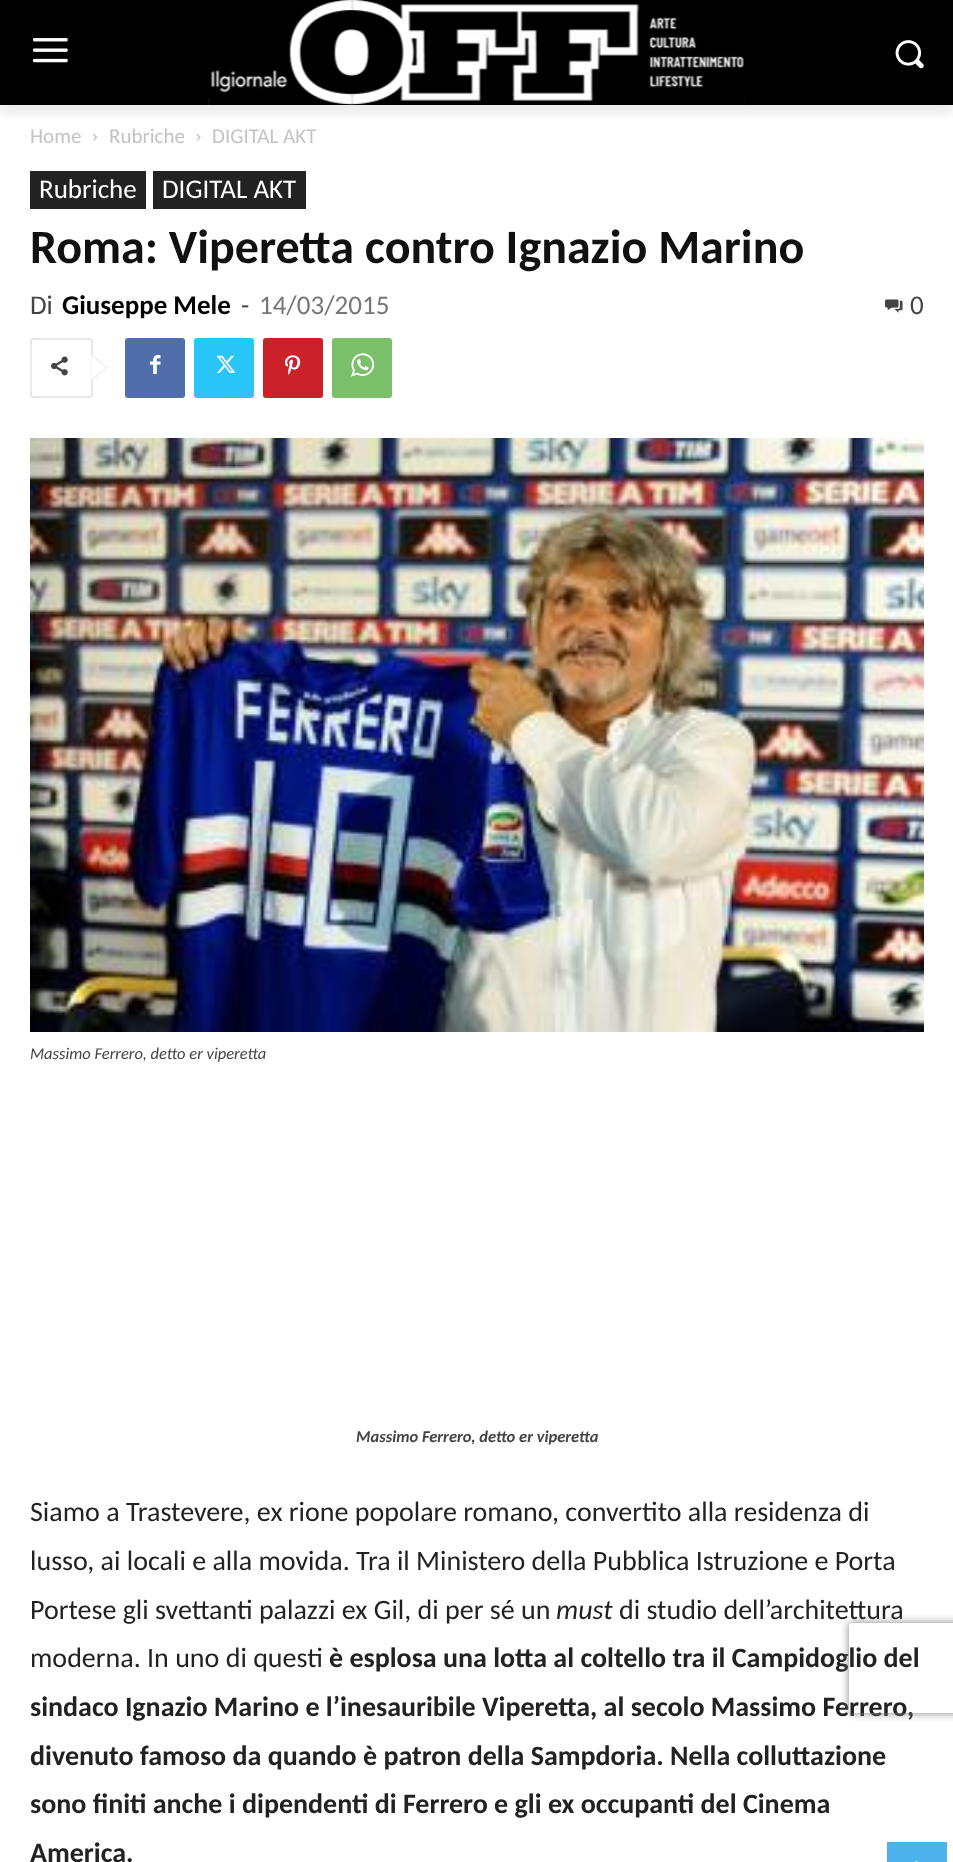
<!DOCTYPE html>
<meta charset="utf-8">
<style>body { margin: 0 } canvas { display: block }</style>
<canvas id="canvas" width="953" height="1862"></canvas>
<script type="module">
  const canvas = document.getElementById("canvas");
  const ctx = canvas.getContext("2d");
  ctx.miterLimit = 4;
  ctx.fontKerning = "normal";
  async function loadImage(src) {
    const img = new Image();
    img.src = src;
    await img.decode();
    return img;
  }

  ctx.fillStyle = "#ffffff";
  ctx.fillRect(0, 0, 953, 1862);
  ctx.fillStyle = "#000000";
  ctx.fillRect(0, 0, 953, 105);
  ctx.drawImage(await loadImage("img1.png"), 33, 38, 35, 25);
  ctx.drawImage(await loadImage("img2.png"), 208, 0, 537, 105);
  ctx.drawImage(await loadImage("img3.png"), 895, 40, 29, 29);
  ctx.save();
  ctx.beginPath();
  ctx.rect(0, 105, 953, 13);
  ctx.clip();
  ctx.fillStyle = "rgba(0, 0, 0, 0.08)";
  ctx.filter = "blur(6px)";
  ctx.beginPath();
  ctx.rect(0, 9, 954, 105);
  ctx.fill();
  ctx.filter = "none";
  ctx.restore();
  ctx.font = "21px Carlito";
  ctx.fillStyle = "#c3c3c3";
  ctx.fillText("Home", 30, 143);
  ctx.drawImage(await loadImage("img4.png"), 93, 134, 4, 7);
  ctx.fillText("Rubriche", 109, 143);
  ctx.drawImage(await loadImage("img5.png"), 196, 134, 5, 7);
  ctx.fillText("DIGITAL AKT", 212, 143);
  ctx.fillStyle = "#222222";
  ctx.fillRect(30, 171, 116, 38);
  ctx.font = "27px Carlito";
  ctx.fillStyle = "#ffffff";
  ctx.fillText("Rubriche", 39, 198);
  ctx.fillStyle = "#222222";
  ctx.fillRect(153, 171, 153, 38);
  ctx.fillStyle = "#ffffff";
  ctx.fillText("DIGITAL AKT", 162, 198);
  ctx.font = "bold 48px Carlito";
  ctx.fillStyle = "#111111";
  ctx.fillText("Roma: Viperetta contro Ignazio Marino", 30, 263);
  ctx.font = "27px Carlito";
  ctx.fillStyle = "#444444";
  ctx.fillText("Di", 30, 314);
  ctx.font = "bold 27px Carlito";
  ctx.fillStyle = "#000000";
  ctx.fillText("Giuseppe Mele", 62, 314);
  ctx.font = "27px Carlito";
  ctx.fillStyle = "#444444";
  ctx.fillText("-", 241, 314);
  ctx.fillStyle = "#767676";
  ctx.fillText("14/03/2015", 259, 314);
  ctx.drawImage(await loadImage("img6.png"), 885, 299, 18, 14);
  ctx.fillStyle = "#444444";
  ctx.fillText("0", 910, 314);
  ctx.beginPath();
  ctx.roundRect(31, 339, 61, 58, 2);
  ctx.strokeStyle = "#e9e9e9";
  ctx.lineWidth = 2;
  ctx.stroke();
  ctx.fillStyle = "#e9e9e9";
  ctx.beginPath();
  ctx.moveTo(91.5, 381);
  ctx.lineTo(91.5, 354);
  ctx.lineTo(108, 367.5);
  ctx.closePath();
  ctx.fill();
  ctx.drawImage(await loadImage("img7.png"), 51, 356, 17, 20);
  ctx.fillStyle = "#ffffff";
  ctx.beginPath();
  ctx.moveTo(91.5, 379.5);
  ctx.lineTo(91.5, 355.5);
  ctx.lineTo(106.5, 367.5);
  ctx.closePath();
  ctx.fill();
  ctx.fillStyle = "#516eab";
  ctx.beginPath();
  ctx.roundRect(125, 338, 60, 60, 3);
  ctx.fill();
  ctx.drawImage(await loadImage("img8.png"), 150, 355, 11, 19);
  ctx.fillStyle = "#29c5f6";
  ctx.beginPath();
  ctx.roundRect(194, 338, 60, 60, 3);
  ctx.fill();
  ctx.drawImage(await loadImage("img9.png"), 216, 355, 20, 18);
  ctx.fillStyle = "#ca212a";
  ctx.beginPath();
  ctx.roundRect(263, 338, 60, 60, 3);
  ctx.fill();
  ctx.drawImage(await loadImage("img10.png"), 285, 355, 16, 20);
  ctx.fillStyle = "#7bbf6a";
  ctx.beginPath();
  ctx.roundRect(332, 338, 60, 60, 3);
  ctx.fill();
  ctx.drawImage(await loadImage("img11.png"), 351, 353, 24, 24);
  ctx.drawImage(await loadImage("img12.png"), 30, 438, 894, 594);
  ctx.font = "italic 16.5px Carlito";
  ctx.fillStyle = "#444444";
  ctx.fillText("Massimo Ferrero, detto er viperetta", 30, 1059);
  ctx.font = "italic bold 16.5px Carlito";
  ctx.fillText("Massimo Ferrero, detto er viperetta", 356, 1442);
  ctx.font = "28px Carlito";
  ctx.fillStyle = "#222222";
  ctx.fillText("Siamo a Trastevere, ex rione popolare romano, convertito alla residenza di", 30, 1521);
  ctx.fillText("lusso, ai locali e alla movida. Tra il Ministero della Pubblica Istruzione e Porta", 30, 1570);
  ctx.fillText("Portese gli svettanti palazzi ex Gil, di per sé un", 30, 1619);
  ctx.font = "italic 28px Carlito";
  ctx.fillText("must", 556, 1619);
  ctx.font = "28px Carlito";
  ctx.fillText("di studio dell’architettura", 619, 1619);
  ctx.fillText("moderna. In uno di questi", 30, 1667);
  ctx.font = "bold 28px Carlito";
  ctx.fillText("è esplosa una lotta al coltello tra il Campidoglio del", 329, 1667);
  ctx.fillText("sindaco Ignazio Marino e l’inesauribile Viperetta, al secolo Massimo Ferrero,", 30, 1716);
  ctx.fillText("divenuto famoso da quando è patron della Sampdoria. Nella colluttazione", 30, 1765);
  ctx.fillText("sono finiti anche i dipendenti di Ferrero e gli ex occupanti del Cinema", 30, 1813);
  ctx.fillText("America.", 30, 1862);
  ctx.save();
  ctx.beginPath();
  ctx.moveTo(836, 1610);
  ctx.lineTo(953, 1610);
  ctx.lineTo(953, 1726);
  ctx.lineTo(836, 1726);
  ctx.closePath();
  ctx.moveTo(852, 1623);
  ctx.lineTo(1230, 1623);
  ctx.bezierCurveTo(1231.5, 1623, 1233, 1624.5, 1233, 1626);
  ctx.lineTo(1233, 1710);
  ctx.bezierCurveTo(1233, 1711.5, 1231.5, 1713, 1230, 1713);
  ctx.lineTo(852, 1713);
  ctx.bezierCurveTo(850.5, 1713, 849, 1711.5, 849, 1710);
  ctx.lineTo(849, 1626);
  ctx.bezierCurveTo(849, 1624.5, 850.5, 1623, 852, 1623);
  ctx.closePath();
  ctx.clip("evenodd");
  ctx.fillStyle = "#808080";
  ctx.filter = "blur(4px)";
  ctx.beginPath();
  ctx.roundRect(849, 1623, 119, 90, 3);
  ctx.fill();
  ctx.filter = "none";
  ctx.restore();
  ctx.fillStyle = "#4db2ec";
  ctx.fillRect(887, 1842, 60, 20);
  ctx.drawImage(await loadImage("img13.png"), 915, 1861, 3, 1);
</script>
